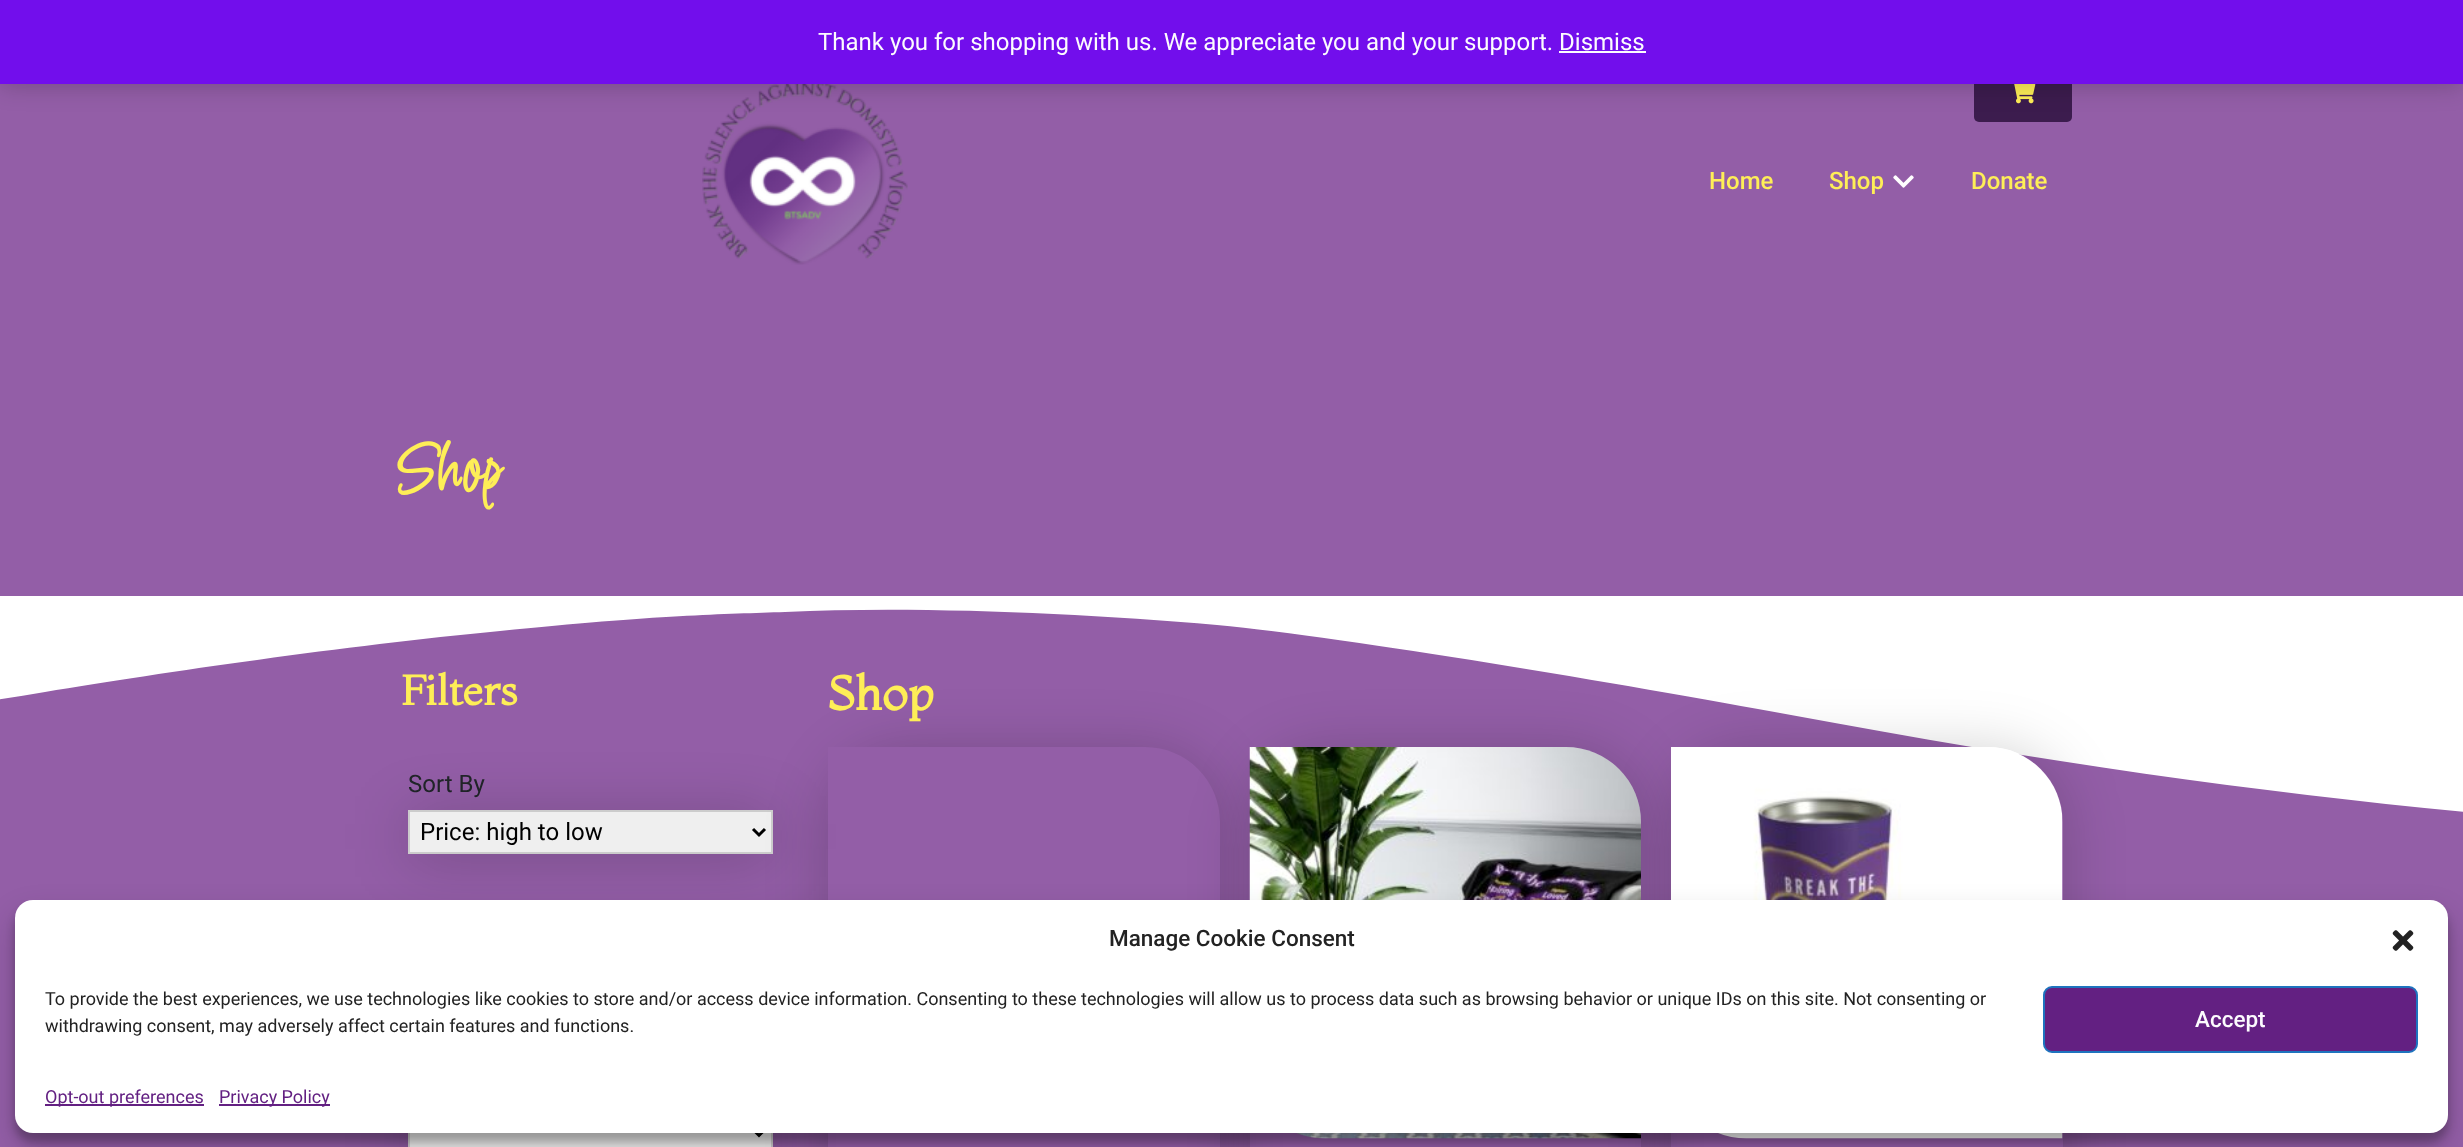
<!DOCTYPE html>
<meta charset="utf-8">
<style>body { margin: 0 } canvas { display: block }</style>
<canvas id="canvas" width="2463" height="1147"></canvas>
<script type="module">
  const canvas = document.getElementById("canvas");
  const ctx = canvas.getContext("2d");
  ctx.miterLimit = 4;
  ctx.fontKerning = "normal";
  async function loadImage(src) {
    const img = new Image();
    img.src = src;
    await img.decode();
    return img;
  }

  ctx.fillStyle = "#935ea7";
  ctx.fillRect(0, 0, 2463, 1147);
  ctx.drawImage(await loadImage("img1.png"), 702, 84, 206, 181);
  ctx.fillStyle = "#3c1c4e";
  ctx.beginPath();
  ctx.roundRect(1974, 63, 98, 59, 5);
  ctx.fill();
  ctx.drawImage(await loadImage("img2.png"), 2014, 84, 22, 20);
  ctx.fillStyle = "rgba(0, 0, 0, 0.2)";
  ctx.filter = "blur(12px)";
  ctx.beginPath();
  ctx.rect(0, 2, 2463, 84);
  ctx.fill();
  ctx.filter = "none";
  ctx.fillStyle = "#720eec";
  ctx.fillRect(0, 0, 2463, 84);
  ctx.font = "24px Roboto";
  ctx.fillStyle = "#fcfbfe";
  ctx.fillText("Thank you for shopping with us. We appreciate you and your support. Dismiss", 818, 50);
  ctx.fillRect(1559, 51, 87, 2);
  ctx.font = "500 24px Roboto";
  ctx.fillStyle = "#feee57";
  ctx.fillText("Home", 1709, 189);
  ctx.fillText("Shop", 1829, 189);
  ctx.drawImage(await loadImage("img3.png"), 1893, 175, 21, 13);
  ctx.fillText("Donate", 1971, 189);
  ctx.font = "bold 72px Licorice";
  ctx.fillText("Shop", 392, 491);
  ctx.fillStyle = "#ffffff";
  ctx.beginPath();
  ctx.moveTo(785, 612);
  ctx.bezierCurveTo(914, 606, 1079, 613, 1217, 625);
  ctx.bezierCurveTo(1352, 638, 1622, 684, 1791, 715);
  ctx.bezierCurveTo(2224, 796, 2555, 827, 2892, 840);
  ctx.bezierCurveTo(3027, 846, 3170, 849, 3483, 834);
  ctx.bezierCurveTo(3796, 819, 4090, 770, 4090, 770);
  ctx.lineTo(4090, 596);
  ctx.lineTo(-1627, 596);
  ctx.lineTo(-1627, 672);
  ctx.bezierCurveTo(-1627, 672, -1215, 754, -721, 749);
  ctx.bezierCurveTo(-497, 747, -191, 732, 45, 692);
  ctx.bezierCurveTo(166, 672, 343, 646, 500, 631);
  ctx.bezierCurveTo(656, 615, 726, 614, 785, 612);
  ctx.closePath();
  ctx.fill();
  ctx.font = "bold 42px Montaga";
  ctx.fillStyle = "#feee57";
  ctx.fillText("Filters", 401, 705);
  ctx.font = "24px Roboto";
  ctx.fillStyle = "#212529";
  ctx.fillText("Sort By", 408, 792);
  ctx.fillStyle = "rgba(0, 0, 0, 0.2)";
  ctx.filter = "blur(30px)";
  ctx.beginPath();
  ctx.rect(408, 815, 365, 43);
  ctx.fill();
  ctx.filter = "none";
  ctx.fillStyle = "#efefef";
  ctx.beginPath();
  ctx.rect(409, 811, 363, 42);
  ctx.fill();
  ctx.strokeStyle = "#cccccc";
  ctx.lineWidth = 2;
  ctx.stroke();
  ctx.beginPath();
  ctx.moveTo(753, 829);
  ctx.lineTo(759, 835);
  ctx.lineTo(765, 829);
  ctx.strokeStyle = "#000000";
  ctx.lineWidth = 3;
  ctx.stroke();
  ctx.fillStyle = "#000000";
  ctx.fillText("Price: high to low", 420, 840);
  ctx.fillStyle = "rgba(0, 0, 0, 0.2)";
  ctx.filter = "blur(30px)";
  ctx.beginPath();
  ctx.rect(408, 1116, 365, 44);
  ctx.fill();
  ctx.filter = "none";
  ctx.fillStyle = "#efefef";
  ctx.fillRect(410, 1133, 361, 14);
  ctx.strokeStyle = "#cccccc";
  ctx.lineWidth = 2;
  ctx.strokeRect(409, 1113, 363, 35);
  ctx.beginPath();
  ctx.moveTo(753, 1129.5);
  ctx.lineTo(759, 1135.5);
  ctx.lineTo(765, 1129.5);
  ctx.strokeStyle = "#000000";
  ctx.lineWidth = 3;
  ctx.stroke();
  ctx.save();
  ctx.beginPath();
  ctx.moveTo(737, 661);
  ctx.lineTo(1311, 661);
  ctx.lineTo(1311, 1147);
  ctx.lineTo(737, 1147);
  ctx.closePath();
  ctx.moveTo(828, 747);
  ctx.lineTo(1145, 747);
  ctx.bezierCurveTo(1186.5, 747, 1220, 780.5, 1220, 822);
  ctx.lineTo(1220, 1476);
  ctx.lineTo(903, 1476);
  ctx.bezierCurveTo(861.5, 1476, 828, 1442.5, 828, 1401);
  ctx.closePath();
  ctx.clip("evenodd");
  ctx.fillStyle = "rgba(0, 0, 0, 0.2)";
  ctx.filter = "blur(30px)";
  ctx.beginPath();
  ctx.roundRect(828, 752, 392, 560, 75);
  ctx.fill();
  ctx.filter = "none";
  ctx.restore();
  ctx.save();
  ctx.beginPath();
  ctx.moveTo(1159, 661);
  ctx.lineTo(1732, 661);
  ctx.lineTo(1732, 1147);
  ctx.lineTo(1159, 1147);
  ctx.closePath();
  ctx.moveTo(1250, 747);
  ctx.lineTo(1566, 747);
  ctx.bezierCurveTo(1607.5, 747, 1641, 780.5, 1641, 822);
  ctx.lineTo(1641, 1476);
  ctx.lineTo(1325, 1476);
  ctx.bezierCurveTo(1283.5, 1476, 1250, 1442.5, 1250, 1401);
  ctx.closePath();
  ctx.clip("evenodd");
  ctx.fillStyle = "rgba(0, 0, 0, 0.2)";
  ctx.filter = "blur(30px)";
  ctx.beginPath();
  ctx.roundRect(1250, 752, 391, 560, 75);
  ctx.fill();
  ctx.filter = "none";
  ctx.restore();
  ctx.drawImage(await loadImage("img4.png"), 1249, 747, 392, 392);
  ctx.save();
  ctx.beginPath();
  ctx.moveTo(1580, 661);
  ctx.lineTo(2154, 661);
  ctx.lineTo(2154, 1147);
  ctx.lineTo(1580, 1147);
  ctx.closePath();
  ctx.moveTo(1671, 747);
  ctx.lineTo(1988, 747);
  ctx.bezierCurveTo(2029.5, 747, 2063, 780.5, 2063, 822);
  ctx.lineTo(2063, 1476);
  ctx.lineTo(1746, 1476);
  ctx.bezierCurveTo(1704.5, 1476, 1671, 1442.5, 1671, 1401);
  ctx.closePath();
  ctx.clip("evenodd");
  ctx.fillStyle = "rgba(0, 0, 0, 0.2)";
  ctx.filter = "blur(30px)";
  ctx.beginPath();
  ctx.roundRect(1671, 752, 392, 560, 75);
  ctx.fill();
  ctx.filter = "none";
  ctx.restore();
  ctx.drawImage(await loadImage("img5.png"), 1671, 747, 392, 392);
  ctx.font = "bold 48px Montaga";
  ctx.fillStyle = "#feee57";
  ctx.fillText("Shop", 828, 710);
  ctx.fillStyle = "rgba(0, 0, 0, 0.23)";
  ctx.filter = "blur(4.5px)";
  ctx.beginPath();
  ctx.roundRect(15, 909, 2433, 233, 18);
  ctx.fill();
  ctx.filter = "none";
  ctx.fillStyle = "rgba(0, 0, 0, 0.19)";
  ctx.filter = "blur(15px)";
  ctx.beginPath();
  ctx.roundRect(15, 915, 2433, 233, 18);
  ctx.fill();
  ctx.filter = "none";
  ctx.fillStyle = "#ffffff";
  ctx.beginPath();
  ctx.roundRect(15, 900, 2433, 233, 18);
  ctx.fill();
  ctx.font = "500 22.5px Roboto";
  ctx.fillStyle = "#222222";
  ctx.fillText("Manage Cookie Consent", 1109, 946);
  ctx.drawImage(await loadImage("img6.png"), 2392, 930, 22, 21);
  ctx.font = "18px Roboto";
  ctx.fillText("To provide the best experiences, we use technologies like cookies to store and/or access device information. Consenting to these technologies will allow us to process data such as browsing behavior or unique IDs on this site. Not consenting or", 45, 1005);
  ctx.fillText("withdrawing consent, may adversely affect certain features and functions.", 45, 1032);
  ctx.fillStyle = "#632082";
  ctx.beginPath();
  ctx.roundRect(2044, 987, 373, 65, 8);
  ctx.fill();
  ctx.strokeStyle = "#1e73be";
  ctx.lineWidth = 2;
  ctx.stroke();
  ctx.font = "500 22.5px Roboto";
  ctx.fillStyle = "#fcfbfe";
  ctx.fillText("Accept", 2195, 1027);
  ctx.fillStyle = "#632082";
  ctx.fillRect(45, 1104, 159, 2);
  ctx.font = "18px Roboto";
  ctx.fillText("Opt-out preferences", 45, 1103);
  ctx.fillRect(219, 1104, 111, 2);
  ctx.fillText("Privacy Policy", 219, 1103);
</script>
